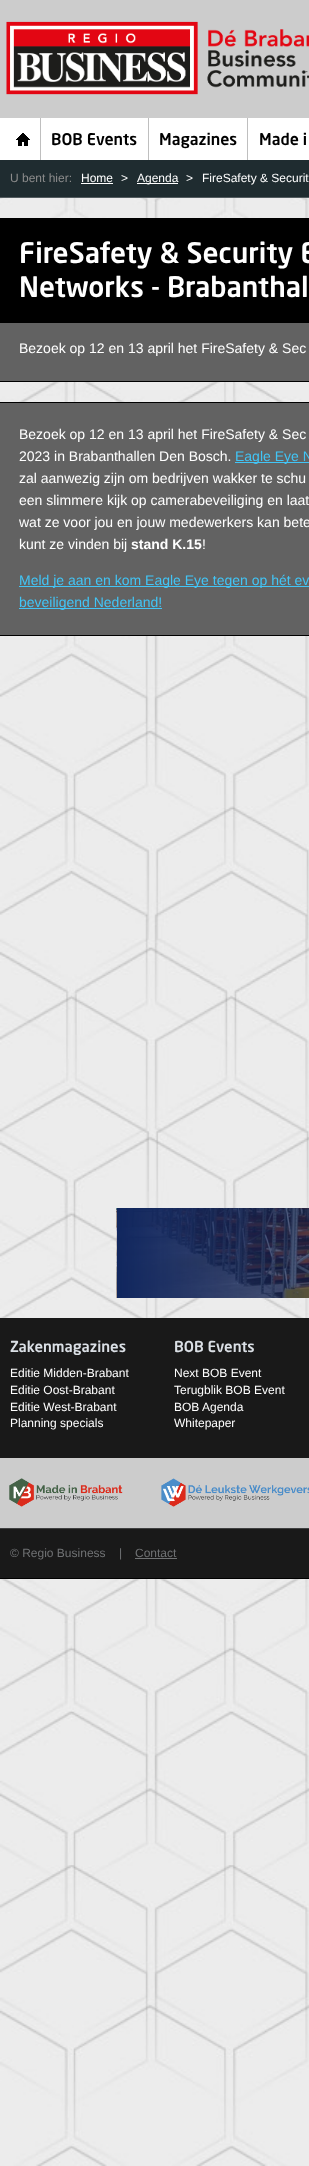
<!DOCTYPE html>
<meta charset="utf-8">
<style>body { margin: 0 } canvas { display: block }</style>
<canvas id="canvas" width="309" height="2166"></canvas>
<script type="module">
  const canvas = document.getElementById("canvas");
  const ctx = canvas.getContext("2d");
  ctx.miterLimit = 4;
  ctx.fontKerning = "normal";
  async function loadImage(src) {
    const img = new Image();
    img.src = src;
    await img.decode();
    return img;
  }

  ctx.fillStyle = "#ffffff";
  ctx.fillRect(0, 0, 309, 2166);
  ctx.fillStyle = "#cccccc";
  ctx.fillRect(0, 0, 309, 118);
  ctx.drawImage(await loadImage("img1.png"), 6, 21, 303, 74);
  ctx.drawImage(await loadImage("img2.png"), 16, 133, 14, 13);
  ctx.fillStyle = "#bfbfbf";
  ctx.fillRect(40, 118, 1, 42);
  ctx.fillRect(148, 118, 1, 42);
  ctx.font = "500 16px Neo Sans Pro";
  ctx.fillStyle = "#000000";
  ctx.fillText("BOB Events", 51, 145);
  ctx.fillStyle = "#bfbfbf";
  ctx.fillRect(247, 118, 1, 42);
  ctx.fillStyle = "#000000";
  ctx.fillText("Magazines", 159, 145);
  ctx.fillText("Made i", 259, 145);
  ctx.fillStyle = "#1f2c30";
  ctx.fillRect(0, 160, 309, 37);
  ctx.fillStyle = "#535c60";
  ctx.fillRect(0, 197, 309, 1);
  ctx.font = "12px Liberation Sans";
  ctx.fillStyle = "#8c8c8c";
  ctx.fillText("U bent hier:", 10, 182);
  ctx.fillStyle = "#ffffff";
  ctx.fillText("Home", 81, 182);
  ctx.fillRect(81, 183, 32, 1);
  ctx.fillText(">", 121, 182);
  ctx.fillRect(137, 183, 41, 1);
  ctx.fillText("Agenda", 137, 182);
  ctx.fillText(">", 186, 182);
  ctx.fillText("FireSafety & Securit", 202, 182);
  ctx.drawImage(await loadImage("img3.png"), 0, 198, 309, 1968);
  ctx.fillStyle = "#626262";
  ctx.fillRect(0, 323, 309, 58);
  ctx.strokeStyle = "#000000";
  ctx.strokeRect(-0.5, 218.5, 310, 163);
  ctx.fillStyle = "#000000";
  ctx.fillRect(0, 219, 309, 104);
  ctx.font = "500 28px Neo Sans Pro";
  ctx.fillStyle = "#ffffff";
  ctx.fillText("FireSafety & Security E", 19, 263);
  ctx.fillText("Networks - Brabanthal", 19, 297);
  ctx.font = "14px Liberation Sans";
  ctx.fillText("Bezoek op 12 en 13 april het FireSafety & Sec", 19, 353);
  ctx.fillStyle = "#626262";
  ctx.beginPath();
  ctx.rect(-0.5, 402.5, 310, 233);
  ctx.fill();
  ctx.stroke();
  ctx.fillStyle = "#ffffff";
  ctx.fillText("Bezoek op 12 en 13 april het FireSafety & Sec", 19, 439);
  ctx.fillText("2023 in Brabanthallen Den Bosch.", 19, 461);
  ctx.fillStyle = "#42c5f6";
  ctx.fillRect(235, 462, 74, 1);
  ctx.fillText("Eagle Eye N", 235, 461);
  ctx.fillStyle = "#ffffff";
  ctx.fillText("zal aanwezig zijn om bedrijven wakker te schu", 19, 483);
  ctx.fillText("een slimmere kijk op camerabeveiliging en laat", 19, 505);
  ctx.fillText("wat ze voor jou en jouw medewerkers kan bete", 19, 527);
  ctx.fillText("kunt ze vinden bij", 19, 549);
  ctx.font = "bold 14px Liberation Sans";
  ctx.fillText("stand K.15", 131, 549);
  ctx.font = "14px Liberation Sans";
  ctx.fillText("!", 202, 549);
  ctx.fillStyle = "#42c5f6";
  ctx.fillRect(19, 586, 290, 1);
  ctx.fillText("Meld je aan en kom Eagle Eye tegen op hét ev", 19, 585);
  ctx.fillRect(19, 608, 143, 1);
  ctx.fillText("beveiligend Nederland!", 19, 607);
  ctx.drawImage(await loadImage("img4.png"), 116, 1208, 193, 90);
  ctx.fillStyle = "#191919";
  ctx.fillRect(0, 1318, 309, 140);
  ctx.font = "500 15px Neo Sans Pro";
  ctx.fillStyle = "#dadfe5";
  ctx.fillText("Zakenmagazines", 10, 1352);
  ctx.font = "12px Liberation Sans";
  ctx.fillStyle = "#ffffff";
  ctx.fillText("Editie Midden-Brabant", 10, 1377);
  ctx.fillText("Editie Oost-Brabant", 10, 1394);
  ctx.fillText("Editie West-Brabant", 10, 1411);
  ctx.fillText("Planning specials", 10, 1427);
  ctx.font = "500 15px Neo Sans Pro";
  ctx.fillStyle = "#dadfe5";
  ctx.fillText("BOB Events", 174, 1352);
  ctx.font = "12px Liberation Sans";
  ctx.fillStyle = "#ffffff";
  ctx.fillText("Next BOB Event", 174, 1377);
  ctx.fillText("Terugblik BOB Event", 174, 1394);
  ctx.fillText("BOB Agenda", 174, 1411);
  ctx.fillText("Whitepaper", 174, 1427);
  ctx.fillStyle = "#cccccc";
  ctx.fillRect(0, 1458, 309, 70);
  ctx.drawImage(await loadImage("img5.png"), 9, 1478, 114, 29);
  ctx.drawImage(await loadImage("img6.png"), 161, 1478, 148, 29);
  ctx.fillStyle = "#191919";
  ctx.fillRect(0, 1529, 309, 49);
  ctx.fillStyle = "#3f4041";
  ctx.fillRect(0, 1528, 309, 1);
  ctx.fillStyle = "#000000";
  ctx.fillRect(0, 1578, 309, 1);
  ctx.fillStyle = "#707274";
  ctx.fillText("© Regio Business", 10, 1557);
  ctx.fillText("|", 119, 1557);
  ctx.fillText("Contact", 135, 1557);
  ctx.fillRect(135, 1558, 42, 1);
</script>
